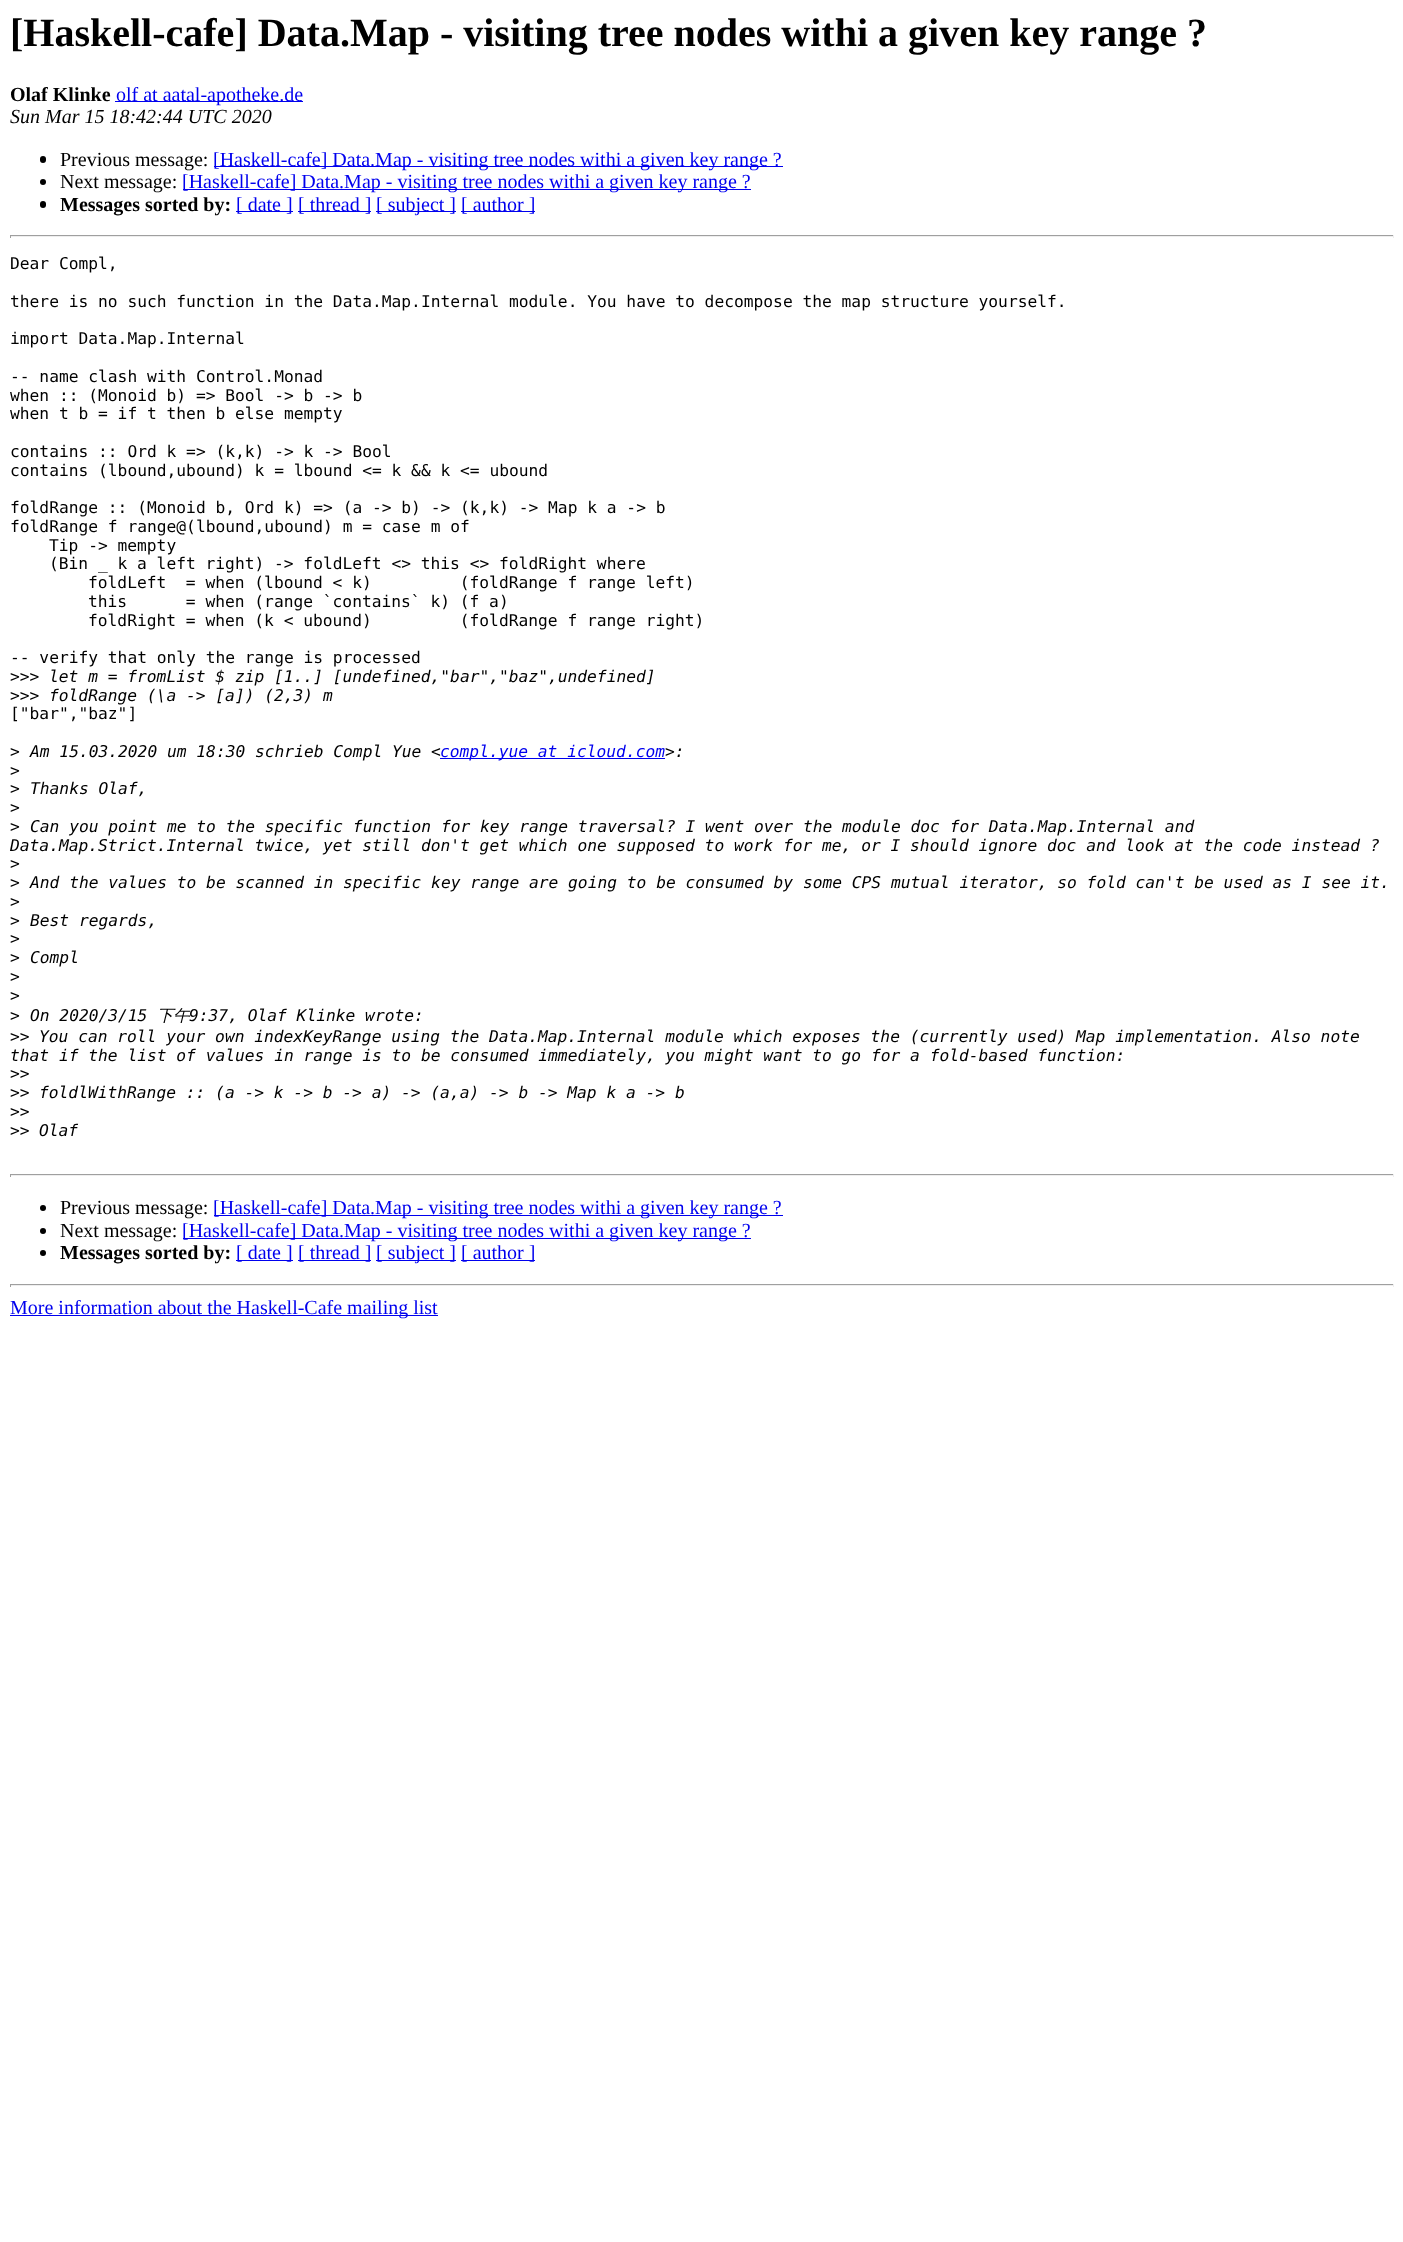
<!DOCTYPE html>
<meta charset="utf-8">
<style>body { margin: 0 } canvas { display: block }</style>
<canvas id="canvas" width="1403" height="2242"></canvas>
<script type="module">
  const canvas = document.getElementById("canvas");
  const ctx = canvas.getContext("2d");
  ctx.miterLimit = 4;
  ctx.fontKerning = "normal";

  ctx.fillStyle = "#ffffff";
  ctx.fillRect(0, 0, 1403, 2242);
  ctx.font = "bold 40px Liberation Serif";
  ctx.fillStyle = "#000000";
  ctx.fillText("[Haskell-cafe] Data.Map - visiting tree nodes withi a given key range ?", 10, 46);
  ctx.font = "bold 20px Liberation Serif";
  ctx.fillText("Olaf Klinke", 10, 101);
  ctx.fillStyle = "#0000ee";
  ctx.fillRect(115, 101, 188, 1);
  ctx.font = "20px Liberation Serif";
  ctx.fillText("olf at aatal-apotheke.de", 116, 101);
  ctx.font = "italic 20px Liberation Serif";
  ctx.fillStyle = "#000000";
  ctx.fillText("Sun Mar 15 18:42:44 UTC 2020", 10, 123);
  ctx.beginPath();
  ctx.roundRect(40, 156, 6, 7, 3);
  ctx.fill();
  ctx.font = "20px Liberation Serif";
  ctx.fillText("Previous message:", 60, 166);
  ctx.fillStyle = "#0000ee";
  ctx.fillRect(214, 166, 569, 1);
  ctx.fillText("[Haskell-cafe] Data.Map - visiting tree nodes withi a given key range ?", 213, 166);
  ctx.fillStyle = "#000000";
  ctx.beginPath();
  ctx.arc(43, 182, 3, 0, Math.PI * 2);
  ctx.fill();
  ctx.fillText("Next message:", 60, 188);
  ctx.fillStyle = "#0000ee";
  ctx.fillRect(183, 189, 568, 1);
  ctx.fillText("[Haskell-cafe] Data.Map - visiting tree nodes withi a given key range ?", 182, 188);
  ctx.fillStyle = "#000000";
  ctx.beginPath();
  ctx.roundRect(40, 201, 6, 7, 3);
  ctx.fill();
  ctx.font = "bold 20px Liberation Serif";
  ctx.fillText("Messages sorted by:", 60, 211);
  ctx.fillStyle = "#0000ee";
  ctx.fillRect(236, 211, 57, 1);
  ctx.font = "20px Liberation Serif";
  ctx.fillText("[ date ]", 236, 211);
  ctx.fillRect(298, 211, 73, 1);
  ctx.fillText("[ thread ]", 298, 211);
  ctx.fillRect(376, 211, 80, 1);
  ctx.fillText("[ subject ]", 376, 211);
  ctx.fillRect(461, 211, 74, 1);
  ctx.fillText("[ author ]", 461, 211);
  ctx.fillStyle = "#9f9f9f";
  ctx.fillRect(10, 235, 1384, 1);
  ctx.fillStyle = "#eeeeee";
  ctx.fillRect(1393, 235, 1, 3);
  ctx.fillRect(10, 236, 1384, 1);
  ctx.fillStyle = "#9f9f9f";
  ctx.fillRect(10, 235, 1, 3);
  ctx.font = "16.25px DejaVu Sans Mono";
  ctx.fillStyle = "#000000";
  ctx.fillText("Dear Compl,", 10, 269);
  ctx.fillText("there is no such function in the Data.Map.Internal module. You have to decompose the map structure yourself.", 10, 307);
  ctx.fillText("import Data.Map.Internal", 10, 344);
  ctx.fillText("-- name clash with Control.Monad", 10, 382);
  ctx.fillText("when :: (Monoid b) => Bool -> b -> b", 10, 401);
  ctx.fillText("when t b = if t then b else mempty", 10, 419);
  ctx.fillText("contains :: Ord k => (k,k) -> k -> Bool", 10, 457);
  ctx.fillText("contains (lbound,ubound) k = lbound <= k && k <= ubound", 10, 476);
  ctx.fillText("foldRange :: (Monoid b, Ord k) => (a -> b) -> (k,k) -> Map k a -> b", 10, 513);
  ctx.fillText("foldRange f range@(lbound,ubound) m = case m of", 10, 532);
  ctx.fillText("Tip -> mempty", 49, 551);
  ctx.fillText("(Bin _ k a left right) -> foldLeft <> this <> foldRight where", 49, 569);
  ctx.fillText("foldLeft  = when (lbound < k)         (foldRange f range left)", 88, 588);
  ctx.fillText("this      = when (range `contains` k) (f a)", 88, 607);
  ctx.fillText("foldRight = when (k < ubound)         (foldRange f range right)", 88, 626);
  ctx.fillText("-- verify that only the range is processed", 10, 663);
  ctx.fillText(">>>", 10, 682);
  ctx.font = "italic 16.25px DejaVu Sans Mono";
  ctx.fillText("let m = fromList $ zip [1..] [undefined,\"bar\",\"baz\",undefined]", 49, 682);
  ctx.font = "16.25px DejaVu Sans Mono";
  ctx.fillText(">>>", 10, 701);
  ctx.font = "italic 16.25px DejaVu Sans Mono";
  ctx.fillText("foldRange (\\a -> [a]) (2,3) m", 49, 701);
  ctx.font = "16.25px DejaVu Sans Mono";
  ctx.fillText("[\"bar\",\"baz\"]", 10, 719);
  ctx.fillText(">", 10, 757);
  ctx.font = "italic 16.25px DejaVu Sans Mono";
  ctx.fillText("Am 15.03.2020 um 18:30 schrieb Compl Yue <", 30, 757);
  ctx.fillStyle = "#0000ee";
  ctx.fillRect(440, 758, 225, 1);
  ctx.fillText("compl.yue at icloud.com", 440, 757);
  ctx.fillStyle = "#000000";
  ctx.fillText(">:", 665, 757);
  ctx.font = "16.25px DejaVu Sans Mono";
  ctx.fillText(">", 10, 776);
  ctx.fillText(">", 10, 794);
  ctx.font = "italic 16.25px DejaVu Sans Mono";
  ctx.fillText("Thanks Olaf,", 30, 794);
  ctx.font = "16.25px DejaVu Sans Mono";
  ctx.fillText(">", 10, 813);
  ctx.fillText(">", 10, 832);
  ctx.font = "italic 16.25px DejaVu Sans Mono";
  ctx.fillText("Can you point me to the specific function for key range traversal? I went over the module doc for Data.Map.Internal and", 30, 832);
  ctx.fillText("Data.Map.Strict.Internal twice, yet still don't get which one supposed to work for me, or I should ignore doc and look at the code instead ?", 10, 851);
  ctx.font = "16.25px DejaVu Sans Mono";
  ctx.fillText(">", 10, 869);
  ctx.fillText(">", 10, 888);
  ctx.font = "italic 16.25px DejaVu Sans Mono";
  ctx.fillText("And the values to be scanned in specific key range are going to be consumed by some CPS mutual iterator, so fold can't be used as I see it.", 30, 888);
  ctx.font = "16.25px DejaVu Sans Mono";
  ctx.fillText(">", 10, 907);
  ctx.fillText(">", 10, 926);
  ctx.font = "italic 16.25px DejaVu Sans Mono";
  ctx.fillText("Best regards,", 30, 926);
  ctx.font = "16.25px DejaVu Sans Mono";
  ctx.fillText(">", 10, 944);
  ctx.fillText(">", 10, 963);
  ctx.font = "italic 16.25px DejaVu Sans Mono";
  ctx.fillText("Compl", 30, 963);
  ctx.font = "16.25px DejaVu Sans Mono";
  ctx.fillText(">", 10, 982);
  ctx.fillText(">", 10, 1001);
  ctx.fillText(">", 10, 1021);
  ctx.font = "italic 16.25px DejaVu Sans Mono";
  ctx.fillText("On 2020/3/15", 30, 1021);
  ctx.font = "italic 500 16.25px WenQuanYi Zen Hei";
  ctx.fillText("下午", 157, 1021);
  ctx.font = "italic 16.25px DejaVu Sans Mono";
  ctx.fillText("9:37, Olaf Klinke wrote:", 189, 1021);
  ctx.font = "16.25px DejaVu Sans Mono";
  ctx.fillText(">>", 10, 1042);
  ctx.font = "italic 16.25px DejaVu Sans Mono";
  ctx.fillText("You can roll your own indexKeyRange using the Data.Map.Internal module which exposes the (currently used) Map implementation. Also note", 39, 1042);
  ctx.fillText("that if the list of values in range is to be consumed immediately, you might want to go for a fold-based function:", 10, 1061);
  ctx.font = "16.25px DejaVu Sans Mono";
  ctx.fillText(">>", 10, 1079);
  ctx.fillText(">>", 10, 1098);
  ctx.font = "italic 16.25px DejaVu Sans Mono";
  ctx.fillText("foldlWithRange :: (a -> k -> b -> a) -> (a,a) -> b -> Map k a -> b", 39, 1098);
  ctx.font = "16.25px DejaVu Sans Mono";
  ctx.fillText(">>", 10, 1117);
  ctx.fillText(">>", 10, 1136);
  ctx.font = "italic 16.25px DejaVu Sans Mono";
  ctx.fillText("Olaf", 39, 1136);
  ctx.fillStyle = "#9f9f9f";
  ctx.fillRect(10, 1174, 1384, 1);
  ctx.fillStyle = "#eeeeee";
  ctx.fillRect(1393, 1174, 1, 3);
  ctx.fillRect(10, 1175, 1384, 1);
  ctx.fillStyle = "#9f9f9f";
  ctx.fillRect(10, 1174, 1, 3);
  ctx.fillStyle = "#000000";
  ctx.beginPath();
  ctx.arc(43, 1208, 3, 0, Math.PI * 2);
  ctx.fill();
  ctx.font = "20px Liberation Serif";
  ctx.fillText("Previous message:", 60, 1214);
  ctx.fillStyle = "#0000ee";
  ctx.fillRect(214, 1215, 569, 1);
  ctx.fillText("[Haskell-cafe] Data.Map - visiting tree nodes withi a given key range ?", 213, 1214);
  ctx.fillStyle = "#000000";
  ctx.beginPath();
  ctx.arc(43, 1231, 3, 0, Math.PI * 2);
  ctx.fill();
  ctx.fillText("Next message:", 60, 1237);
  ctx.fillStyle = "#0000ee";
  ctx.fillRect(183, 1238, 568, 1);
  ctx.fillText("[Haskell-cafe] Data.Map - visiting tree nodes withi a given key range ?", 182, 1237);
  ctx.fillStyle = "#000000";
  ctx.beginPath();
  ctx.arc(43, 1253, 3, 0, Math.PI * 2);
  ctx.fill();
  ctx.font = "bold 20px Liberation Serif";
  ctx.fillText("Messages sorted by:", 60, 1259);
  ctx.fillStyle = "#0000ee";
  ctx.fillRect(236, 1260, 57, 1);
  ctx.font = "20px Liberation Serif";
  ctx.fillText("[ date ]", 236, 1259);
  ctx.fillRect(298, 1260, 73, 1);
  ctx.fillText("[ thread ]", 298, 1259);
  ctx.fillRect(376, 1260, 80, 1);
  ctx.fillText("[ subject ]", 376, 1259);
  ctx.fillRect(461, 1260, 74, 1);
  ctx.fillText("[ author ]", 461, 1259);
  ctx.fillStyle = "#9f9f9f";
  ctx.fillRect(10, 1284, 1384, 1);
  ctx.fillStyle = "#eeeeee";
  ctx.fillRect(1393, 1284, 1, 3);
  ctx.fillRect(10, 1285, 1384, 1);
  ctx.fillStyle = "#9f9f9f";
  ctx.fillRect(10, 1284, 1, 3);
  ctx.fillStyle = "#0000ee";
  ctx.fillRect(10, 1315, 428, 1);
  ctx.fillText("More information about the Haskell-Cafe mailing list", 10, 1314);
</script>
